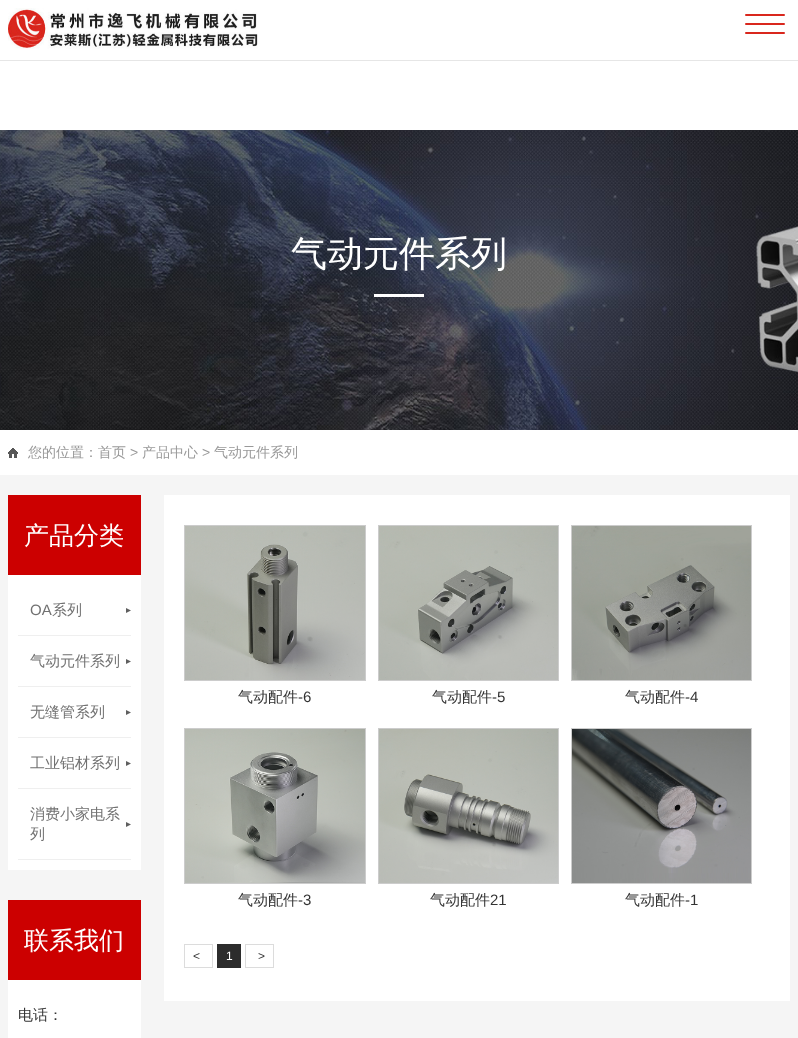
<!DOCTYPE html>
<meta charset="utf-8">
<style>body { margin: 0 } canvas { display: block }</style>
<canvas id="canvas" width="798" height="1038"></canvas>
<script type="module">
  const canvas = document.getElementById("canvas");
  const ctx = canvas.getContext("2d");
  ctx.miterLimit = 4;
  ctx.fontKerning = "normal";
  async function loadImage(src) {
    const img = new Image();
    img.src = src;
    await img.decode();
    return img;
  }

  ctx.fillStyle = "#ffffff";
  ctx.fillRect(0, 0, 798, 1038);
  ctx.fillStyle = "#e6e6e6";
  ctx.fillRect(0, 60, 798, 1);
  ctx.drawImage(await loadImage("img1.png"), 8, 8, 250, 41);
  ctx.fillStyle = "#d9271d";
  ctx.beginPath();
  ctx.roundRect(745, 14, 40, 2, 1);
  ctx.fill();
  ctx.beginPath();
  ctx.roundRect(745, 23, 40, 2, 1);
  ctx.fill();
  ctx.beginPath();
  ctx.roundRect(745, 32, 40, 2, 1);
  ctx.fill();
  ctx.drawImage(await loadImage("img2.png"), 0, 130, 798, 300);
  ctx.font = "500 36px WenQuanYi Zen Hei";
  ctx.fillStyle = "#ffffff";
  ctx.fillText("气动元件系列", 291, 266);
  ctx.fillRect(374, 294, 50, 3);
  ctx.drawImage(await loadImage("img3.png"), 8, 448, 10, 10);
  ctx.font = "500 14px WenQuanYi Zen Hei";
  ctx.fillStyle = "#999999";
  ctx.fillText("您的位置：首页", 28, 457);
  ctx.font = "14px Liberation Sans";
  ctx.fillText(">", 130, 457);
  ctx.font = "500 14px WenQuanYi Zen Hei";
  ctx.fillText("产品中心", 142, 457);
  ctx.font = "14px Liberation Sans";
  ctx.fillText(">", 202, 457);
  ctx.font = "500 14px WenQuanYi Zen Hei";
  ctx.fillText("气动元件系列", 214, 457);
  ctx.fillStyle = "#f5f5f5";
  ctx.fillRect(0, 475, 798, 563);
  ctx.fillStyle = "#cc0000";
  ctx.fillRect(8, 495, 133, 80);
  ctx.font = "500 25px WenQuanYi Zen Hei";
  ctx.fillStyle = "#ffffff";
  ctx.fillText("产品分类", 24, 544);
  ctx.fillRect(8, 575, 133, 295);
  ctx.fillStyle = "#efefef";
  ctx.fillRect(18, 635, 113, 1);
  ctx.drawImage(await loadImage("img4.png"), 126, 608, 5, 5);
  ctx.font = "15px Liberation Sans";
  ctx.fillStyle = "#717171";
  ctx.fillText("OA", 30, 615);
  ctx.font = "500 15px WenQuanYi Zen Hei";
  ctx.fillText("系列", 52, 615);
  ctx.fillStyle = "#efefef";
  ctx.fillRect(18, 686, 113, 1);
  ctx.drawImage(await loadImage("img4.png"), 126, 659, 5, 5);
  ctx.fillStyle = "#717171";
  ctx.fillText("气动元件系列", 30, 666);
  ctx.fillStyle = "#efefef";
  ctx.fillRect(18, 737, 113, 1);
  ctx.drawImage(await loadImage("img4.png"), 126, 710, 5, 5);
  ctx.fillStyle = "#717171";
  ctx.fillText("无缝管系列", 30, 717);
  ctx.fillStyle = "#efefef";
  ctx.fillRect(18, 788, 113, 1);
  ctx.drawImage(await loadImage("img4.png"), 126, 761, 5, 5);
  ctx.fillStyle = "#717171";
  ctx.fillText("工业铝材系列", 30, 768);
  ctx.fillStyle = "#efefef";
  ctx.fillRect(18, 859, 113, 1);
  ctx.drawImage(await loadImage("img4.png"), 126, 822, 5, 5);
  ctx.fillStyle = "#717171";
  ctx.fillText("消费小家电系", 30, 819);
  ctx.fillText("列", 30, 839);
  ctx.fillStyle = "#cc0000";
  ctx.fillRect(8, 900, 133, 80);
  ctx.font = "500 25px WenQuanYi Zen Hei";
  ctx.fillStyle = "#ffffff";
  ctx.fillText("联系我们", 24, 949);
  ctx.fillRect(8, 980, 133, 58);
  ctx.font = "500 15px WenQuanYi Zen Hei";
  ctx.fillStyle = "#333333";
  ctx.fillText("电话：", 18, 1020);
  ctx.fillStyle = "#ffffff";
  ctx.fillRect(164, 495, 626, 506);
  ctx.strokeStyle = "#cccccc";
  ctx.strokeRect(184.5, 525.5, 181, 155);
  ctx.drawImage(await loadImage("img5.png"), 185, 526, 180, 154);
  ctx.fillStyle = "#333333";
  ctx.fillText("气动配件", 238, 702);
  ctx.font = "15px Liberation Sans";
  ctx.fillText("-6", 298, 702);
  ctx.strokeRect(378.5, 525.5, 180, 155);
  ctx.drawImage(await loadImage("img6.png"), 379, 526, 179, 154);
  ctx.font = "500 15px WenQuanYi Zen Hei";
  ctx.fillText("气动配件", 432, 702);
  ctx.font = "15px Liberation Sans";
  ctx.fillText("-5", 492, 702);
  ctx.strokeRect(571.5, 525.5, 180, 155);
  ctx.drawImage(await loadImage("img7.png"), 572, 526, 179, 154);
  ctx.font = "500 15px WenQuanYi Zen Hei";
  ctx.fillText("气动配件", 625, 702);
  ctx.font = "15px Liberation Sans";
  ctx.fillText("-4", 685, 702);
  ctx.strokeRect(184.5, 728.5, 181, 155);
  ctx.drawImage(await loadImage("img8.png"), 185, 729, 180, 154);
  ctx.font = "500 15px WenQuanYi Zen Hei";
  ctx.fillText("气动配件", 238, 905);
  ctx.font = "15px Liberation Sans";
  ctx.fillText("-3", 298, 905);
  ctx.strokeRect(378.5, 728.5, 180, 155);
  ctx.drawImage(await loadImage("img9.png"), 379, 729, 179, 154);
  ctx.font = "500 15px WenQuanYi Zen Hei";
  ctx.fillText("气动配件", 430, 905);
  ctx.font = "15px Liberation Sans";
  ctx.fillText("21", 490, 905);
  ctx.strokeRect(571.5, 728.5, 180, 155);
  ctx.drawImage(await loadImage("img10.png"), 572, 729, 179, 154);
  ctx.font = "500 15px WenQuanYi Zen Hei";
  ctx.fillText("气动配件", 625, 905);
  ctx.font = "15px Liberation Sans";
  ctx.fillText("-1", 685, 905);
  ctx.strokeStyle = "#dcdcdc";
  ctx.strokeRect(184.5, 944.5, 28, 23);
  ctx.font = "12px Liberation Sans";
  ctx.fillText("<", 193, 960);
  ctx.fillStyle = "#2c2c2c";
  ctx.fillRect(217, 944, 24, 24);
  ctx.fillStyle = "#ffffff";
  ctx.fillText("1", 226, 960);
  ctx.strokeRect(245.5, 944.5, 28, 23);
  ctx.fillStyle = "#333333";
  ctx.fillText(">", 258, 960);
</script>
